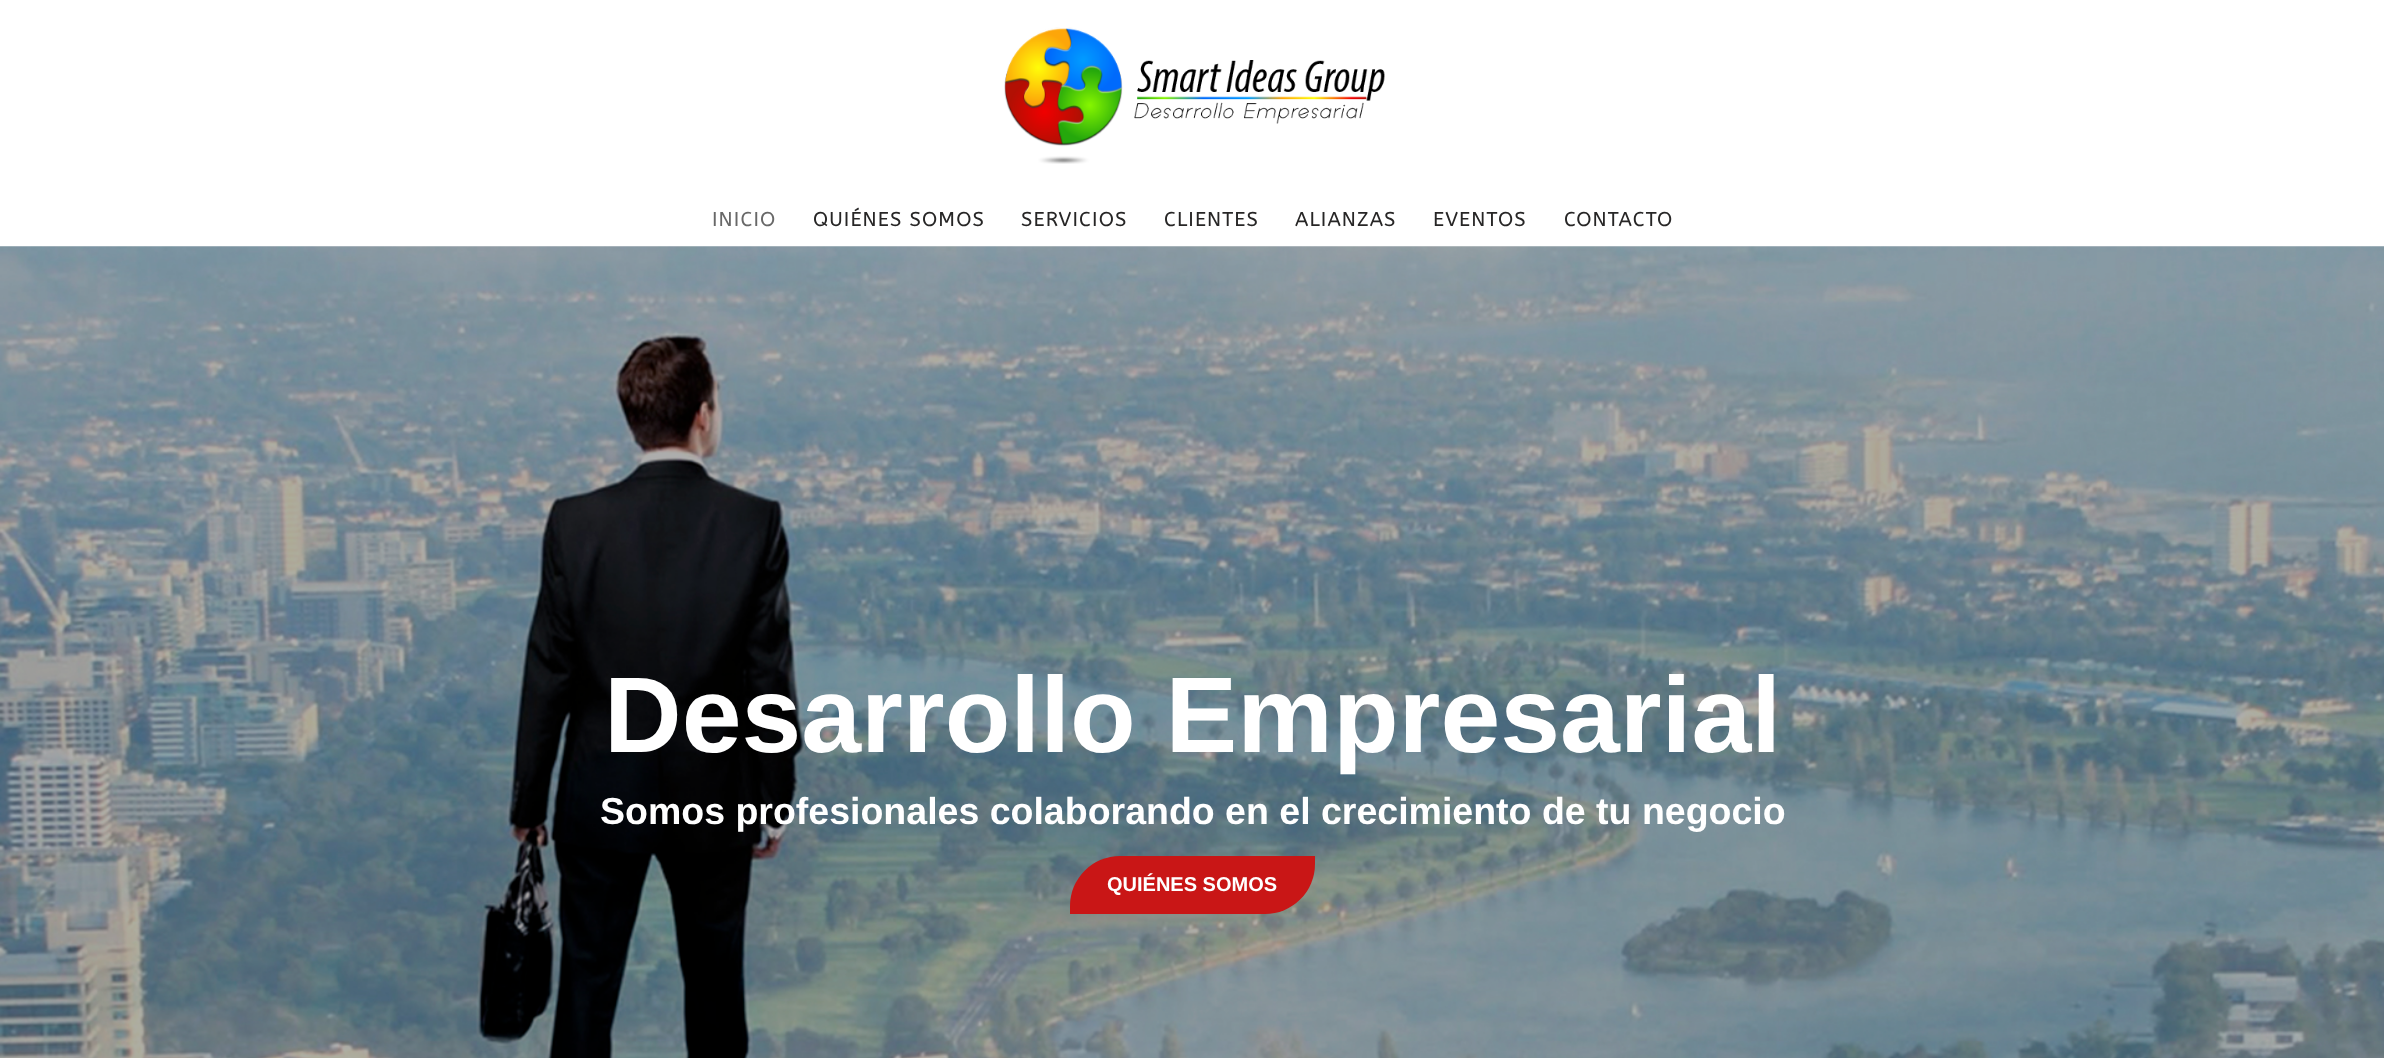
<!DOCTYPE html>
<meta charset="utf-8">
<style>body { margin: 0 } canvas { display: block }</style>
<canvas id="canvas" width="2384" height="1058"></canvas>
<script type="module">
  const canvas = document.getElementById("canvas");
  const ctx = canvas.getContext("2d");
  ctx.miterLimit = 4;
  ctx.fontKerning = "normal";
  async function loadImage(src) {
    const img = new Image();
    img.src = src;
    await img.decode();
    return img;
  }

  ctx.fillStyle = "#ffffff";
  ctx.fillRect(0, 0, 2384, 1058);
  ctx.drawImage(await loadImage("img1.png"), 1004, 27, 381, 137);
  ctx.letterSpacing = "1.1px";
  ctx.font = "20px ABeeZee";
  ctx.fillStyle = "#686868";
  ctx.fillText("INICIO", 712, 226);
  ctx.fillStyle = "#272626";
  ctx.fillText("QUIÉNES SOMOS", 813, 226);
  ctx.fillText("SERVICIOS", 1021, 226);
  ctx.fillText("CLIENTES", 1164, 226);
  ctx.fillText("ALIANZAS", 1295, 226);
  ctx.fillText("EVENTOS", 1433, 226);
  ctx.fillText("CONTACTO", 1564, 226);
  ctx.drawImage(await loadImage("img2.png"), 0, 246, 2384, 812);
  ctx.letterSpacing = "0px";
  ctx.font = "bold 107.5px Liberation Sans";
  ctx.fillStyle = "#ffffff";
  ctx.fillText("Desarrollo Empresarial", 604, 752);
  ctx.font = "bold 37.5px Liberation Sans";
  ctx.fillText("Somos profesionales colaborando en el crecimiento de tu negocio", 600, 824);
  ctx.fillStyle = "#c91616";
  ctx.beginPath();
  ctx.roundRect(1070, 856, 245, 58, [50, 0, 50, 0]);
  ctx.fill();
  ctx.font = "bold 20px Liberation Sans";
  ctx.fillStyle = "#ffffff";
  ctx.fillText("QUIÉNES SOMOS", 1107, 891);
</script>
